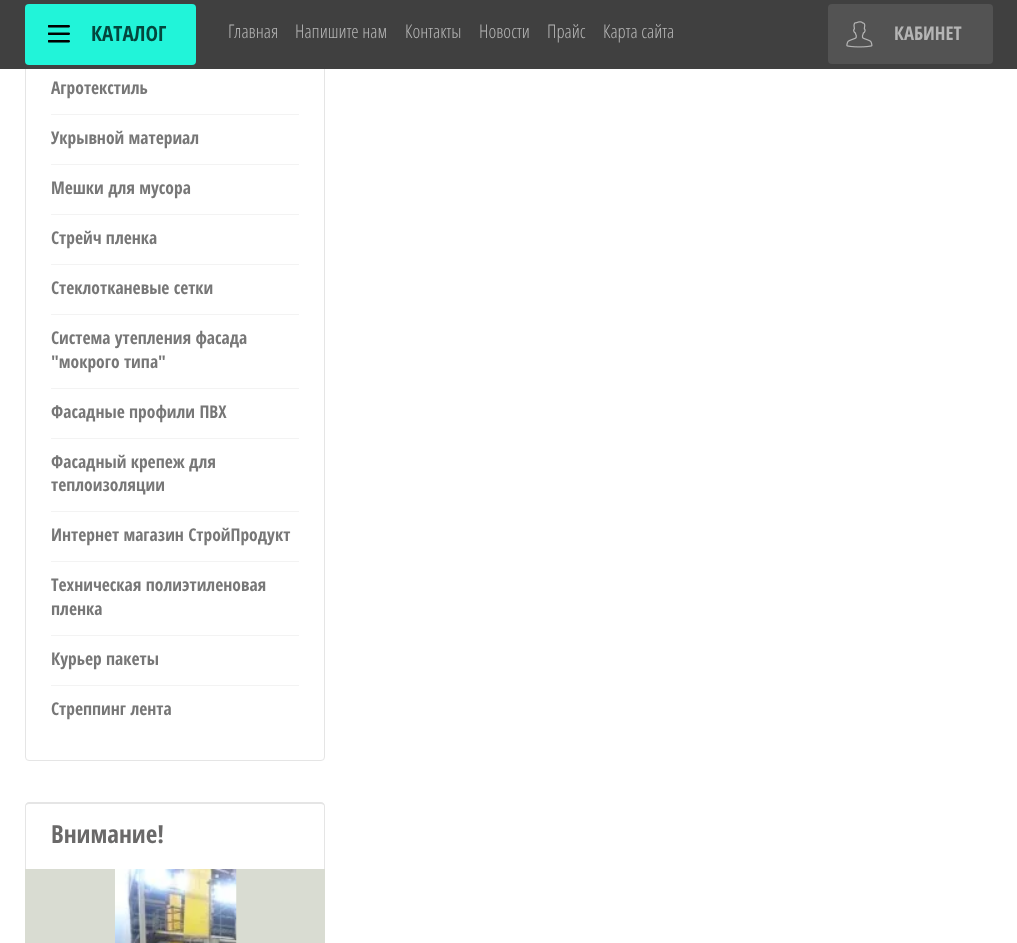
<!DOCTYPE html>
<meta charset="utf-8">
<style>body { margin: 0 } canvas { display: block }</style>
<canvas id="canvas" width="1017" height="943"></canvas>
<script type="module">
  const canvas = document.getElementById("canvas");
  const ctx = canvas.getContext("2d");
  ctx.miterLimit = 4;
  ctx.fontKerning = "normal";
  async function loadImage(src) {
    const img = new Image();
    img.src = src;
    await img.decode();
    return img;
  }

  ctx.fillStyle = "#ffffff";
  ctx.fillRect(0, 0, 1017, 943);
  ctx.beginPath();
  ctx.roundRect(25.5, -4.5, 299, 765, 3.5);
  ctx.strokeStyle = "#e5e5e5";
  ctx.stroke();
  ctx.fillStyle = "#404040";
  ctx.fillRect(0, 0, 1017, 69);
  ctx.fillStyle = "#21f4d9";
  ctx.beginPath();
  ctx.roundRect(25, 4, 171, 61, 4);
  ctx.fill();
  ctx.drawImage(await loadImage("img1.png"), 48, 25, 22, 18);
  ctx.font = "bold 21px Open Sans Condensed";
  ctx.fillStyle = "#03463d";
  ctx.fillText("КАТАЛОГ", 91, 41);
  ctx.font = "300 18.75px Open Sans";
  ctx.fillStyle = "#b5b5b5";
  ctx.fillText("Главная", 228, 38);
  ctx.fillText("Напишите нам", 295, 38);
  ctx.fillText("Контакты", 405, 38);
  ctx.fillText("Новости", 479, 38);
  ctx.fillText("Прайс", 547, 38);
  ctx.fillText("Карта сайта", 603, 38);
  ctx.fillStyle = "#535353";
  ctx.beginPath();
  ctx.roundRect(828, 4, 165, 60, 4);
  ctx.fill();
  ctx.drawImage(await loadImage("img2.png"), 846, 21, 27, 27);
  ctx.font = "bold 18.75px Open Sans Condensed";
  ctx.fillStyle = "#b5b5b5";
  ctx.fillText("КАБИНЕТ", 894, 40);
  ctx.font = "bold 17.5px Open Sans Condensed";
  ctx.fillStyle = "#777777";
  ctx.fillText("Агротекстиль", 51, 94);
  ctx.fillStyle = "#f3f3f3";
  ctx.fillRect(51, 114, 248, 1);
  ctx.fillStyle = "#777777";
  ctx.fillText("Укрывной материал", 51, 144);
  ctx.fillStyle = "#f3f3f3";
  ctx.fillRect(51, 164, 248, 1);
  ctx.fillStyle = "#777777";
  ctx.fillText("Мешки для мусора", 51, 194);
  ctx.fillStyle = "#f3f3f3";
  ctx.fillRect(51, 214, 248, 1);
  ctx.fillStyle = "#777777";
  ctx.fillText("Стрейч пленка", 51, 244);
  ctx.fillStyle = "#f3f3f3";
  ctx.fillRect(51, 264, 248, 1);
  ctx.fillStyle = "#777777";
  ctx.fillText("Стеклотканевые сетки", 51, 294);
  ctx.fillStyle = "#f3f3f3";
  ctx.fillRect(51, 314, 248, 1);
  ctx.fillStyle = "#777777";
  ctx.fillText("Система утепления фасада", 51, 344);
  ctx.fillText("\"мокрого типа\"", 51, 368);
  ctx.fillStyle = "#f3f3f3";
  ctx.fillRect(51, 388, 248, 1);
  ctx.fillStyle = "#777777";
  ctx.fillText("Фасадные профили ПВХ", 51, 418);
  ctx.fillStyle = "#f3f3f3";
  ctx.fillRect(51, 438, 248, 1);
  ctx.fillStyle = "#777777";
  ctx.fillText("Фасадный крепеж для", 51, 468);
  ctx.fillText("теплоизоляции", 51, 491);
  ctx.fillStyle = "#f3f3f3";
  ctx.fillRect(51, 511, 248, 1);
  ctx.fillStyle = "#777777";
  ctx.fillText("Интернет магазин СтройПродукт", 51, 541);
  ctx.fillStyle = "#f3f3f3";
  ctx.fillRect(51, 561, 248, 1);
  ctx.fillStyle = "#777777";
  ctx.fillText("Техническая полиэтиленовая", 51, 591);
  ctx.fillText("пленка", 51, 615);
  ctx.fillStyle = "#f3f3f3";
  ctx.fillRect(51, 635, 248, 1);
  ctx.fillStyle = "#777777";
  ctx.fillText("Курьер пакеты", 51, 665);
  ctx.fillStyle = "#f3f3f3";
  ctx.fillRect(51, 685, 248, 1);
  ctx.fillStyle = "#777777";
  ctx.fillText("Стреппинг лента", 51, 715);
  ctx.fillStyle = "#e5e5e5";
  ctx.beginPath();
  ctx.moveTo(29, 802);
  ctx.lineTo(321, 802);
  ctx.bezierCurveTo(323, 802, 325, 804, 325, 806);
  ctx.lineTo(325, 869);
  ctx.lineTo(25, 869);
  ctx.lineTo(25, 806);
  ctx.bezierCurveTo(25, 804, 27, 802, 29, 802);
  ctx.closePath();
  ctx.moveTo(29, 804);
  ctx.lineTo(321, 804);
  ctx.bezierCurveTo(323, 804, 324, 805, 324, 806);
  ctx.lineTo(324, 869);
  ctx.lineTo(26, 869);
  ctx.lineTo(26, 806);
  ctx.bezierCurveTo(26, 805, 27, 804, 29, 804);
  ctx.closePath();
  ctx.fill("evenodd");
  ctx.font = "bold 25px Open Sans Condensed";
  ctx.fillStyle = "#6a6969";
  ctx.fillText("Внимание!", 51, 843);
  ctx.fillStyle = "#d9dcd2";
  ctx.fillRect(25, 869, 300, 74);
  ctx.drawImage(await loadImage("img3.png"), 115, 869, 122, 74);
</script>
